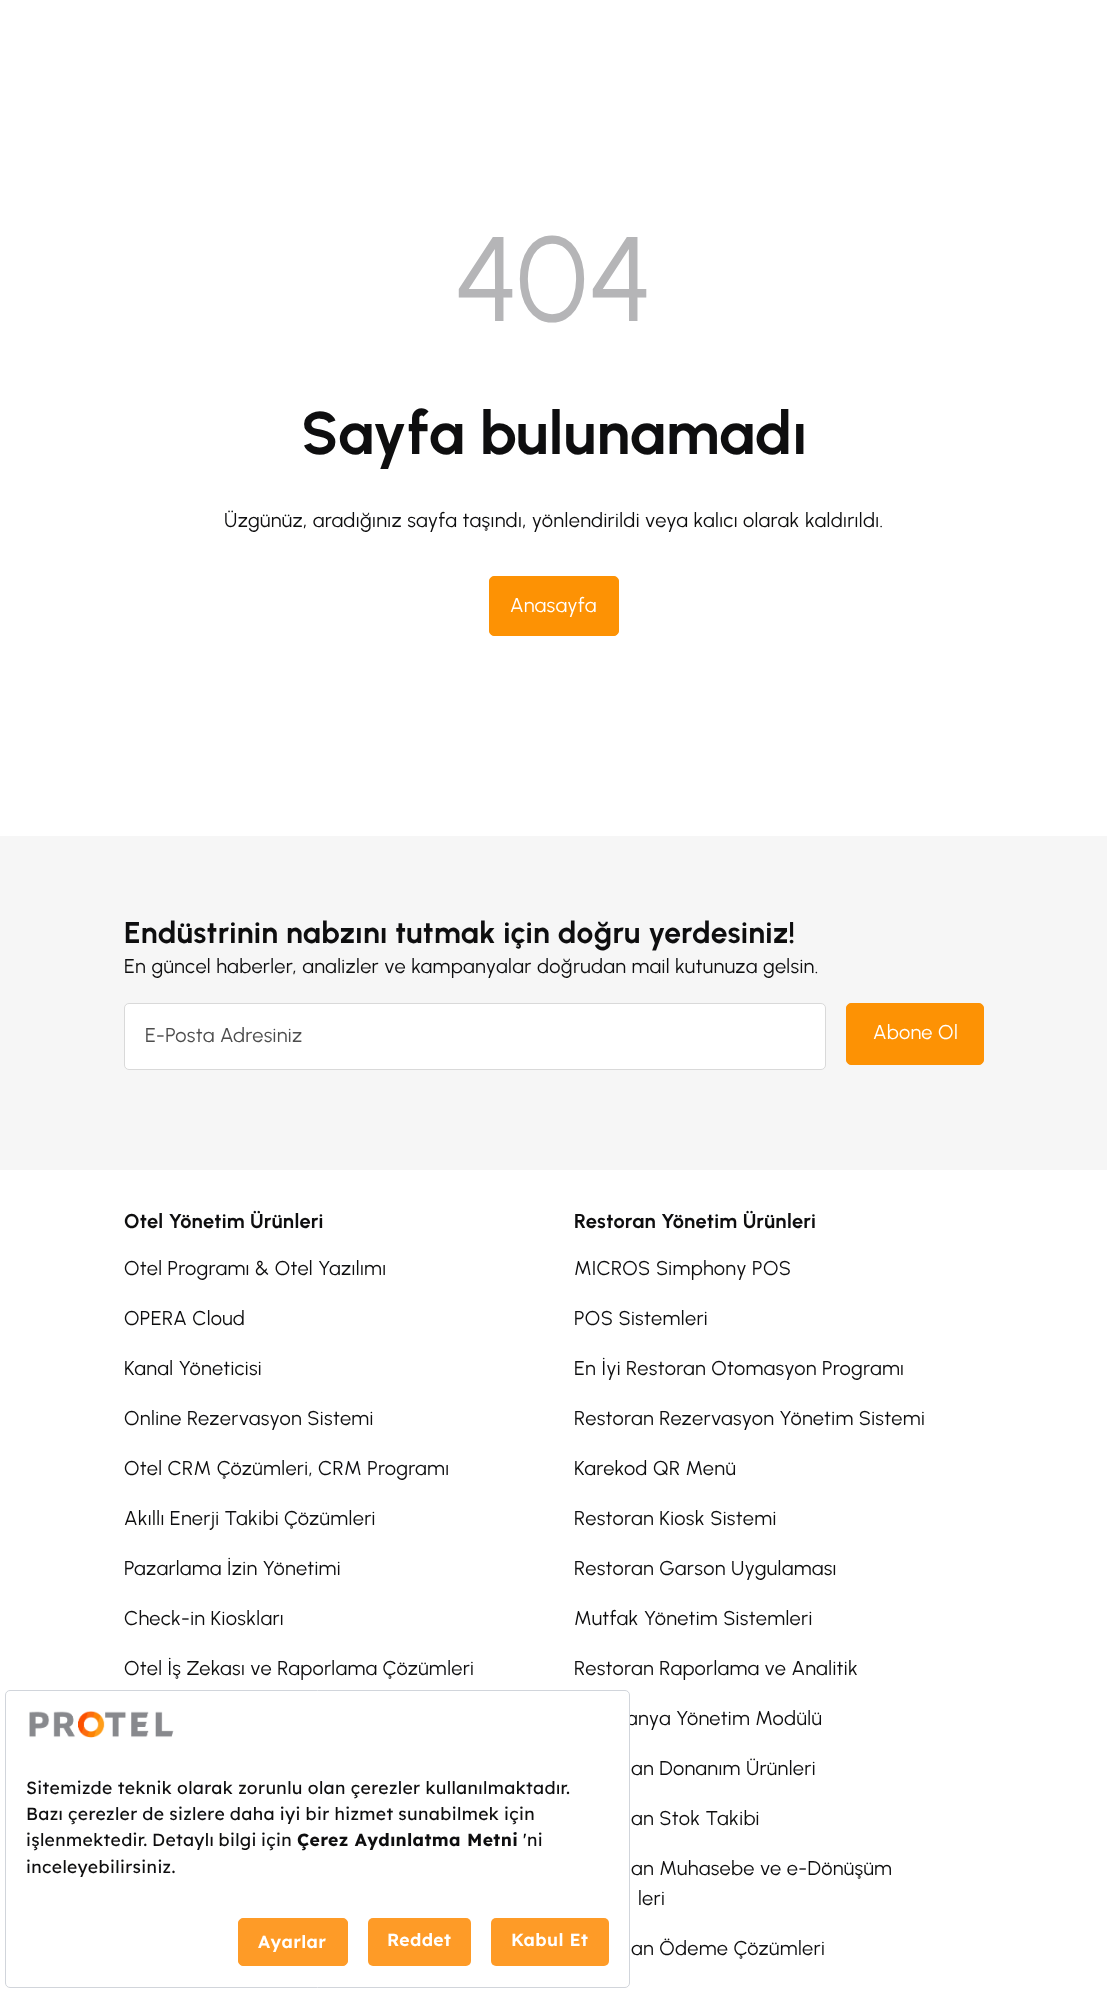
<!DOCTYPE html>
<meta charset="utf-8">
<style>body { margin: 0 } canvas { display: block }</style>
<canvas id="canvas" width="1107" height="1992"></canvas>
<script type="module">
  const canvas = document.getElementById("canvas");
  const ctx = canvas.getContext("2d");
  ctx.miterLimit = 4;
  ctx.fontKerning = "normal";
  async function loadImage(src) {
    const img = new Image();
    img.src = src;
    await img.decode();
    return img;
  }

  ctx.fillStyle = "#ffffff";
  ctx.fillRect(0, 0, 1107, 1992);
  ctx.letterSpacing = "0.38px";
  ctx.font = "120px Urbanist";
  ctx.fillStyle = "#b5b5b7";
  ctx.fillText("404", 454, 321);
  ctx.font = "bold 60px Urbanist";
  ctx.fillStyle = "#0e0e0f";
  ctx.fillText("Sayfa bulunamadı", 301, 454);
  ctx.font = "20px Urbanist";
  ctx.fillText("Üzgünüz, aradığınız sayfa taşındı, yönlendirildi veya kalıcı olarak kaldırıldı.", 224, 527);
  ctx.fillStyle = "#fd9204";
  ctx.beginPath();
  ctx.roundRect(489.5, 576.5, 129, 59, 4.5);
  ctx.fill();
  ctx.strokeStyle = "#fd9204";
  ctx.stroke();
  ctx.fillStyle = "#ffffff";
  ctx.fillText("Anasayfa", 510, 612);
  ctx.fillStyle = "#f6f6f6";
  ctx.fillRect(0, 836, 1107, 334);
  ctx.font = "bold 30px Urbanist";
  ctx.fillStyle = "#0e0e0f";
  ctx.fillText("Endüstrinin nabzını tutmak için doğru yerdesiniz!", 124, 943);
  ctx.font = "20px Urbanist";
  ctx.fillText("En güncel haberler, analizler ve kampanyalar doğrudan mail kutunuza gelsin.", 124, 973);
  ctx.fillStyle = "#ffffff";
  ctx.beginPath();
  ctx.roundRect(124.5, 1003.5, 701, 66, 4.5);
  ctx.fill();
  ctx.strokeStyle = "#d9d9d9";
  ctx.stroke();
  ctx.fillStyle = "#4d4d4d";
  ctx.fillText("E-Posta Adresiniz", 145, 1042);
  ctx.fillStyle = "#fd9204";
  ctx.beginPath();
  ctx.roundRect(846.5, 1003.5, 137, 61, 4.5);
  ctx.fill();
  ctx.strokeStyle = "#fd9204";
  ctx.stroke();
  ctx.fillStyle = "#ffffff";
  ctx.fillText("Abone Ol", 873, 1039);
  ctx.font = "bold 20px Urbanist";
  ctx.fillStyle = "#0e0e0f";
  ctx.fillText("Otel Yönetim Ürünleri", 124, 1228);
  ctx.font = "20px Urbanist";
  ctx.fillText("Otel Programı & Otel Yazılımı", 124, 1275);
  ctx.fillText("OPERA Cloud", 124, 1325);
  ctx.fillText("Kanal Yöneticisi", 124, 1375);
  ctx.fillText("Online Rezervasyon Sistemi", 124, 1425);
  ctx.fillText("Otel CRM Çözümleri, CRM Programı", 124, 1475);
  ctx.fillText("Akıllı Enerji Takibi Çözümleri", 124, 1525);
  ctx.fillText("Pazarlama İzin Yönetimi", 124, 1575);
  ctx.fillText("Check-in Kioskları", 124, 1625);
  ctx.fillText("Otel İş Zekası ve Raporlama Çözümleri", 124, 1675);
  ctx.font = "bold 20px Urbanist";
  ctx.fillText("Restoran Yönetim Ürünleri", 574, 1228);
  ctx.font = "20px Urbanist";
  ctx.fillText("MICROS Simphony POS", 574, 1275);
  ctx.fillText("POS Sistemleri", 574, 1325);
  ctx.fillText("En İyi Restoran Otomasyon Programı", 574, 1375);
  ctx.fillText("Restoran Rezervasyon Yönetim Sistemi", 574, 1425);
  ctx.fillText("Karekod QR Menü", 574, 1475);
  ctx.fillText("Restoran Kiosk Sistemi", 574, 1525);
  ctx.fillText("Restoran Garson Uygulaması", 574, 1575);
  ctx.fillText("Mutfak Yönetim Sistemleri", 574, 1625);
  ctx.fillText("Restoran Raporlama ve Analitik", 574, 1675);
  ctx.fillText("anya Yönetim Modülü", 626, 1725);
  ctx.fillText("an Donanım Ürünleri", 631, 1775);
  ctx.fillText("an Stok Takibi", 631, 1825);
  ctx.fillText("an Muhasebe ve e-Dönüşüm", 631, 1875);
  ctx.fillText("leri", 638, 1905);
  ctx.fillText("an Ödeme Çözümleri", 631, 1955);
  ctx.fillStyle = "#ffffff";
  ctx.beginPath();
  ctx.roundRect(5.5, 1690.5, 624, 297, 4.5);
  ctx.fill();
  ctx.strokeStyle = "#d1d5db";
  ctx.stroke();
  ctx.drawImage(await loadImage("img1.png"), 29, 1711, 145, 27);
  ctx.wordSpacing = "-0.25px";
  ctx.font = "17.5px Lexend";
  ctx.fillStyle = "#0e0e0f";
  ctx.fillText("Sitemizde teknik olarak zorunlu olan çerezler kullanılmaktadır.", 26, 1794);
  ctx.wordSpacing = "-0.5px";
  ctx.fillText("Bazı çerezler de sizlere daha iyi bir hizmet sunabilmek için", 26, 1820);
  ctx.wordSpacing = "-1px";
  ctx.fillText("işlenmektedir. Detaylı bilgi için", 26, 1846);
  ctx.wordSpacing = "0px";
  ctx.font = "bold 17.5px Lexend";
  ctx.fillText("Çerez Aydınlatma Metni", 297, 1846);
  ctx.font = "17.5px Lexend";
  ctx.fillText("'ni", 523, 1846);
  ctx.fillText("inceleyebilirsiniz.", 26, 1873);
  ctx.fillStyle = "#fe9b27";
  ctx.beginPath();
  ctx.roundRect(238.5, 1918.5, 109, 47, 4.5);
  ctx.fill();
  ctx.strokeStyle = "#fe9b27";
  ctx.stroke();
  ctx.font = "600 17.5px Lexend";
  ctx.fillStyle = "#ffffff";
  ctx.fillText("Ayarlar", 258, 1948);
  ctx.fillStyle = "#fe9b27";
  ctx.beginPath();
  ctx.roundRect(368, 1918, 103, 48, 5);
  ctx.fill();
  ctx.fillStyle = "#ffffff";
  ctx.fillText("Reddet", 387, 1946);
  ctx.fillStyle = "#fe9b27";
  ctx.beginPath();
  ctx.roundRect(491, 1918, 118, 48, 5);
  ctx.fill();
  ctx.fillStyle = "#ffffff";
  ctx.fillText("Kabul Et", 511, 1946);
</script>
